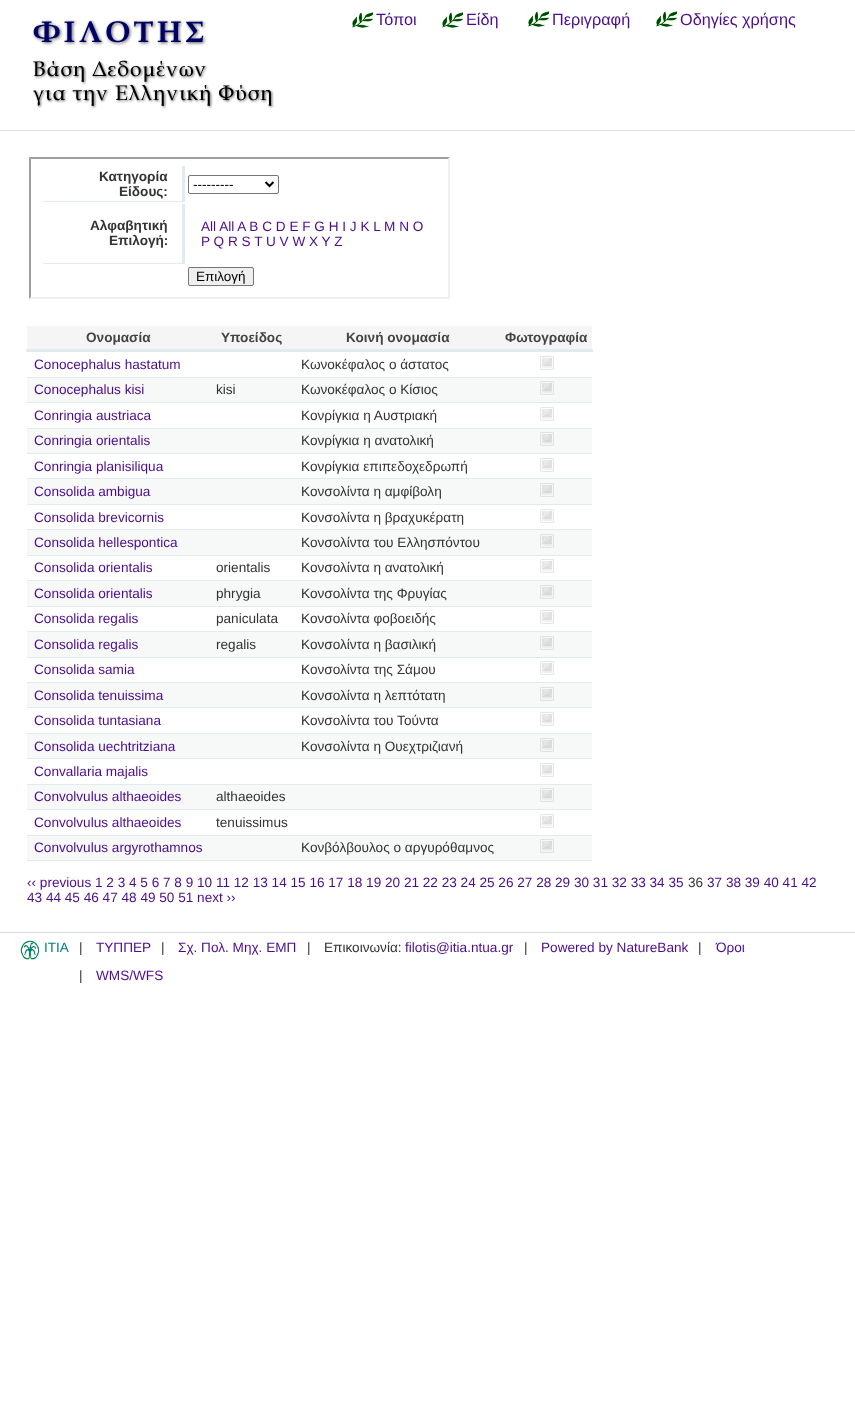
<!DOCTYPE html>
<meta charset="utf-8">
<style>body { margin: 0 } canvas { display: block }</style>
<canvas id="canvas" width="855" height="1428"></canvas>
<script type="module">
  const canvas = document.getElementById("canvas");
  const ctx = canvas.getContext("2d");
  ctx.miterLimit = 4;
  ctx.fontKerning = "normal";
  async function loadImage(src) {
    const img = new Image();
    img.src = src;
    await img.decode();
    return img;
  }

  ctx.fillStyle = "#ffffff";
  ctx.fillRect(0, 0, 855, 1428);
  ctx.fillStyle = "#dddddd";
  ctx.fillRect(0, 130, 855, 1);
  ctx.drawImage(await loadImage("img1.png"), 32, 19, 242, 90);
  ctx.drawImage(await loadImage("img2.png"), 352, 12, 21, 16);
  ctx.font = "16.25px Liberation Sans";
  ctx.fillStyle = "#4c0d8c";
  ctx.fillText("Τόποι", 376, 25);
  ctx.drawImage(await loadImage("img2.png"), 442, 12, 21, 16);
  ctx.fillText("Είδη", 466, 25);
  ctx.drawImage(await loadImage("img2.png"), 528, 11, 21, 16);
  ctx.fillText("Περιγραφή", 552, 25);
  ctx.drawImage(await loadImage("img2.png"), 656, 11, 21, 16);
  ctx.fillText("Οδηγίες χρήσης", 680, 25);
  ctx.fillStyle = "#9f9f9f";
  ctx.beginPath();
  ctx.moveTo(29, 157);
  ctx.lineTo(450, 157);
  ctx.lineTo(448, 159);
  ctx.lineTo(31, 159);
  ctx.closePath();
  ctx.fill();
  ctx.fillStyle = "#efefef";
  ctx.beginPath();
  ctx.moveTo(450, 157);
  ctx.lineTo(450, 299);
  ctx.lineTo(448, 297);
  ctx.lineTo(448, 159);
  ctx.closePath();
  ctx.fill();
  ctx.beginPath();
  ctx.moveTo(450, 299);
  ctx.lineTo(29, 299);
  ctx.lineTo(31, 297);
  ctx.lineTo(448, 297);
  ctx.closePath();
  ctx.fill();
  ctx.fillStyle = "#9f9f9f";
  ctx.beginPath();
  ctx.moveTo(29, 299);
  ctx.lineTo(29, 157);
  ctx.lineTo(31, 159);
  ctx.lineTo(31, 297);
  ctx.closePath();
  ctx.fill();
  ctx.fillStyle = "#e3eaee";
  ctx.fillRect(182, 166, 3, 36);
  ctx.fillRect(43, 201, 142, 1);
  ctx.font = "bold 13.6px Liberation Sans";
  ctx.fillStyle = "#333333";
  ctx.fillText("Κατηγορία", 99, 181);
  ctx.fillText("Είδους:", 119, 196);
  ctx.beginPath();
  ctx.roundRect(188.5, 175.5, 90, 18, 1.5);
  ctx.strokeStyle = "#767676";
  ctx.stroke();
  ctx.beginPath();
  ctx.moveTo(265.5, 182);
  ctx.lineTo(269.5, 186);
  ctx.lineTo(273.5, 182);
  ctx.strokeStyle = "#000000";
  ctx.lineWidth = 2;
  ctx.stroke();
  ctx.font = "13.5px Liberation Sans";
  ctx.fillStyle = "#000000";
  ctx.fillText("---------", 193, 189);
  ctx.fillStyle = "#e3eaee";
  ctx.fillRect(182, 204, 3, 60);
  ctx.fillRect(43, 263, 142, 1);
  ctx.font = "bold 13.6px Liberation Sans";
  ctx.fillStyle = "#333333";
  ctx.fillText("Αλφαβητική", 90, 230);
  ctx.fillText("Επιλογή:", 109, 245);
  ctx.font = "13.6px Liberation Sans";
  ctx.fillStyle = "#4c0d8c";
  ctx.fillText("All All A B C D E F G H I J K L M N O", 201, 231);
  ctx.fillText("P Q R S T U V W X Y Z", 201, 246);
  ctx.fillStyle = "#efefef";
  ctx.beginPath();
  ctx.roundRect(188.5, 267.5, 65, 18, 1.5);
  ctx.fill();
  ctx.strokeStyle = "#767676";
  ctx.lineWidth = 1;
  ctx.stroke();
  ctx.font = "13.5px Liberation Sans";
  ctx.fillStyle = "#000000";
  ctx.fillText("Επιλογή", 196, 281);
  ctx.fillStyle = "#f5f5f5";
  ctx.fillRect(27, 326, 565, 23);
  ctx.font = "bold 13.6px Liberation Sans";
  ctx.fillStyle = "#444444";
  ctx.fillText("Ονομασία", 86, 342);
  ctx.fillText("Υποείδος", 221, 342);
  ctx.fillText("Κοινή ονομασία", 346, 342);
  ctx.fillStyle = "#e3eaee";
  ctx.fillRect(26, 349, 567, 3);
  ctx.fillStyle = "#444444";
  ctx.fillText("Φωτογραφία", 505, 342);
  ctx.fillStyle = "#e3eaee";
  ctx.fillRect(27, 377, 565, 1);
  ctx.drawImage(await loadImage("img3.png"), 540, 356, 14, 14);
  ctx.font = "13.6px Liberation Sans";
  ctx.fillStyle = "#4c0d8c";
  ctx.fillText("Conocephalus hastatum", 34, 369);
  ctx.fillStyle = "#333333";
  ctx.fillText("Κωνοκέφαλος ο άστατος", 301, 369);
  ctx.fillStyle = "#e3eaee";
  ctx.fillRect(27, 402, 565, 1);
  ctx.fillStyle = "#f7f8f8";
  ctx.fillRect(27, 378, 565, 24);
  ctx.drawImage(await loadImage("img4.png"), 540, 381, 14, 14);
  ctx.fillStyle = "#4c0d8c";
  ctx.fillText("Conocephalus kisi", 34, 394);
  ctx.fillStyle = "#333333";
  ctx.fillText("kisi", 216, 394);
  ctx.fillText("Κωνοκέφαλος ο Κίσιος", 301, 394);
  ctx.fillStyle = "#e3eaee";
  ctx.fillRect(27, 428, 565, 1);
  ctx.drawImage(await loadImage("img3.png"), 540, 407, 14, 14);
  ctx.fillStyle = "#4c0d8c";
  ctx.fillText("Conringia austriaca", 34, 420);
  ctx.fillStyle = "#333333";
  ctx.fillText("Κονρίγκια η Αυστριακή", 301, 420);
  ctx.fillStyle = "#e3eaee";
  ctx.fillRect(27, 453, 565, 1);
  ctx.fillStyle = "#f7f8f8";
  ctx.fillRect(27, 429, 565, 24);
  ctx.drawImage(await loadImage("img4.png"), 540, 432, 14, 14);
  ctx.fillStyle = "#4c0d8c";
  ctx.fillText("Conringia orientalis", 34, 445);
  ctx.fillStyle = "#333333";
  ctx.fillText("Κονρίγκια η ανατολική", 301, 445);
  ctx.fillStyle = "#e3eaee";
  ctx.fillRect(27, 478, 565, 1);
  ctx.drawImage(await loadImage("img3.png"), 540, 458, 14, 14);
  ctx.fillStyle = "#4c0d8c";
  ctx.fillText("Conringia planisiliqua", 34, 471);
  ctx.fillStyle = "#333333";
  ctx.fillText("Κονρίγκια επιπεδοχεδρωπή", 301, 471);
  ctx.fillStyle = "#e3eaee";
  ctx.fillRect(27, 504, 565, 1);
  ctx.fillStyle = "#f7f8f8";
  ctx.fillRect(27, 479, 565, 25);
  ctx.drawImage(await loadImage("img4.png"), 540, 483, 14, 14);
  ctx.fillStyle = "#4c0d8c";
  ctx.fillText("Consolida ambigua", 34, 496);
  ctx.fillStyle = "#333333";
  ctx.fillText("Κονσολίντα η αμφίβολη", 301, 496);
  ctx.fillStyle = "#e3eaee";
  ctx.fillRect(27, 529, 565, 1);
  ctx.drawImage(await loadImage("img3.png"), 540, 509, 14, 14);
  ctx.fillStyle = "#4c0d8c";
  ctx.fillText("Consolida brevicornis", 34, 522);
  ctx.fillStyle = "#333333";
  ctx.fillText("Κονσολίντα η βραχυκέρατη", 301, 522);
  ctx.fillStyle = "#e3eaee";
  ctx.fillRect(27, 555, 565, 1);
  ctx.fillStyle = "#f7f8f8";
  ctx.fillRect(27, 530, 565, 25);
  ctx.drawImage(await loadImage("img4.png"), 540, 534, 14, 14);
  ctx.fillStyle = "#4c0d8c";
  ctx.fillText("Consolida hellespontica", 34, 547);
  ctx.fillStyle = "#333333";
  ctx.fillText("Κονσολίντα του Ελλησπόντου", 301, 547);
  ctx.fillStyle = "#e3eaee";
  ctx.fillRect(27, 580, 565, 1);
  ctx.drawImage(await loadImage("img3.png"), 540, 559, 14, 14);
  ctx.fillStyle = "#4c0d8c";
  ctx.fillText("Consolida orientalis", 34, 572);
  ctx.fillStyle = "#333333";
  ctx.fillText("orientalis", 216, 572);
  ctx.fillText("Κονσολίντα η ανατολική", 301, 572);
  ctx.fillStyle = "#e3eaee";
  ctx.fillRect(27, 606, 565, 1);
  ctx.fillStyle = "#f7f8f8";
  ctx.fillRect(27, 581, 565, 25);
  ctx.drawImage(await loadImage("img4.png"), 540, 585, 14, 14);
  ctx.fillStyle = "#4c0d8c";
  ctx.fillText("Consolida orientalis", 34, 598);
  ctx.fillStyle = "#333333";
  ctx.fillText("phrygia", 216, 598);
  ctx.fillText("Κονσολίντα της Φρυγίας", 301, 598);
  ctx.fillStyle = "#e3eaee";
  ctx.fillRect(27, 631, 565, 1);
  ctx.drawImage(await loadImage("img3.png"), 540, 610, 14, 14);
  ctx.fillStyle = "#4c0d8c";
  ctx.fillText("Consolida regalis", 34, 623);
  ctx.fillStyle = "#333333";
  ctx.fillText("paniculata", 216, 623);
  ctx.fillText("Κονσολίντα φοβοειδής", 301, 623);
  ctx.fillStyle = "#e3eaee";
  ctx.fillRect(27, 657, 565, 1);
  ctx.fillStyle = "#f7f8f8";
  ctx.fillRect(27, 632, 565, 25);
  ctx.drawImage(await loadImage("img4.png"), 540, 636, 14, 14);
  ctx.fillStyle = "#4c0d8c";
  ctx.fillText("Consolida regalis", 34, 649);
  ctx.fillStyle = "#333333";
  ctx.fillText("regalis", 216, 649);
  ctx.fillText("Κονσολίντα η βασιλική", 301, 649);
  ctx.fillStyle = "#e3eaee";
  ctx.fillRect(27, 682, 565, 1);
  ctx.drawImage(await loadImage("img3.png"), 540, 661, 14, 14);
  ctx.fillStyle = "#4c0d8c";
  ctx.fillText("Consolida samia", 34, 674);
  ctx.fillStyle = "#333333";
  ctx.fillText("Κονσολίντα της Σάμου", 301, 674);
  ctx.fillStyle = "#e3eaee";
  ctx.fillRect(27, 707, 565, 1);
  ctx.fillStyle = "#f7f8f8";
  ctx.fillRect(27, 683, 565, 24);
  ctx.drawImage(await loadImage("img4.png"), 540, 687, 14, 14);
  ctx.fillStyle = "#4c0d8c";
  ctx.fillText("Consolida tenuissima", 34, 700);
  ctx.fillStyle = "#333333";
  ctx.fillText("Κονσολίντα η λεπτότατη", 301, 700);
  ctx.fillStyle = "#e3eaee";
  ctx.fillRect(27, 733, 565, 1);
  ctx.drawImage(await loadImage("img3.png"), 540, 712, 14, 14);
  ctx.fillStyle = "#4c0d8c";
  ctx.fillText("Consolida tuntasiana", 34, 725);
  ctx.fillStyle = "#333333";
  ctx.fillText("Κονσολίντα του Τούντα", 301, 725);
  ctx.fillStyle = "#e3eaee";
  ctx.fillRect(27, 758, 565, 1);
  ctx.fillStyle = "#f7f8f8";
  ctx.fillRect(27, 734, 565, 24);
  ctx.drawImage(await loadImage("img4.png"), 540, 738, 14, 14);
  ctx.fillStyle = "#4c0d8c";
  ctx.fillText("Consolida uechtritziana", 34, 751);
  ctx.fillStyle = "#333333";
  ctx.fillText("Κονσολίντα η Ουεχτριζιανή", 301, 751);
  ctx.fillStyle = "#e3eaee";
  ctx.fillRect(27, 784, 565, 1);
  ctx.drawImage(await loadImage("img3.png"), 540, 763, 14, 14);
  ctx.fillStyle = "#4c0d8c";
  ctx.fillText("Convallaria majalis", 34, 776);
  ctx.fillStyle = "#e3eaee";
  ctx.fillRect(27, 809, 565, 1);
  ctx.fillStyle = "#f7f8f8";
  ctx.fillRect(27, 785, 565, 24);
  ctx.drawImage(await loadImage("img4.png"), 540, 788, 14, 14);
  ctx.fillStyle = "#4c0d8c";
  ctx.fillText("Convolvulus althaeoides", 34, 801);
  ctx.fillStyle = "#333333";
  ctx.fillText("althaeoides", 216, 801);
  ctx.fillStyle = "#e3eaee";
  ctx.fillRect(27, 835, 565, 1);
  ctx.drawImage(await loadImage("img3.png"), 540, 814, 14, 14);
  ctx.fillStyle = "#4c0d8c";
  ctx.fillText("Convolvulus althaeoides", 34, 827);
  ctx.fillStyle = "#333333";
  ctx.fillText("tenuissimus", 216, 827);
  ctx.fillStyle = "#e3eaee";
  ctx.fillRect(27, 860, 565, 1);
  ctx.fillStyle = "#f7f8f8";
  ctx.fillRect(27, 836, 565, 24);
  ctx.drawImage(await loadImage("img4.png"), 540, 839, 14, 14);
  ctx.fillStyle = "#4c0d8c";
  ctx.fillText("Convolvulus argyrothamnos", 34, 852);
  ctx.fillStyle = "#333333";
  ctx.fillText("Κονβόλβουλος ο αργυρόθαμνος", 301, 852);
  ctx.fillStyle = "#4c0d8c";
  ctx.fillText("‹‹ previous 1 2 3 4 5 6 7 8 9 10 11 12 13 14 15 16 17 18 19 20 21 22 23 24 25 26 27 28 29 30 31 32 33 34 35", 27, 887);
  ctx.fillStyle = "#333333";
  ctx.fillText("36", 688, 887);
  ctx.fillStyle = "#4c0d8c";
  ctx.fillText("37 38 39 40 41 42", 707, 887);
  ctx.fillText("43 44 45 46 47 48 49 50 51 next ››", 27, 902);
  ctx.fillStyle = "#dddddd";
  ctx.fillRect(0, 932, 855, 1);
  ctx.drawImage(await loadImage("img5.png"), 20, 940, 20, 20);
  ctx.fillStyle = "#007f7f";
  ctx.fillText("ITIA", 44, 952);
  ctx.fillStyle = "#333333";
  ctx.fillText("|", 79, 952);
  ctx.fillStyle = "#4c0d8c";
  ctx.fillText("ΤΥΠΠΕΡ", 96, 952);
  ctx.fillStyle = "#333333";
  ctx.fillText("|", 161, 952);
  ctx.fillStyle = "#4c0d8c";
  ctx.fillText("Σχ. Πολ. Μηχ. ΕΜΠ", 178, 952);
  ctx.fillStyle = "#333333";
  ctx.fillText("|", 307, 952);
  ctx.fillText("Επικοινωνία:", 324, 952);
  ctx.fillStyle = "#4c0d8c";
  ctx.fillText("filotis@itia.ntua.gr", 405, 952);
  ctx.fillStyle = "#333333";
  ctx.fillText("|", 524, 952);
  ctx.fillStyle = "#4c0d8c";
  ctx.fillText("Powered by NatureBank", 541, 952);
  ctx.fillStyle = "#333333";
  ctx.fillText("|", 698, 952);
  ctx.fillStyle = "#4c0d8c";
  ctx.fillText("Όροι", 716, 952);
  ctx.fillStyle = "#333333";
  ctx.fillText("|", 79, 980);
  ctx.fillStyle = "#4c0d8c";
  ctx.fillText("WMS/WFS", 96, 980);
</script>
